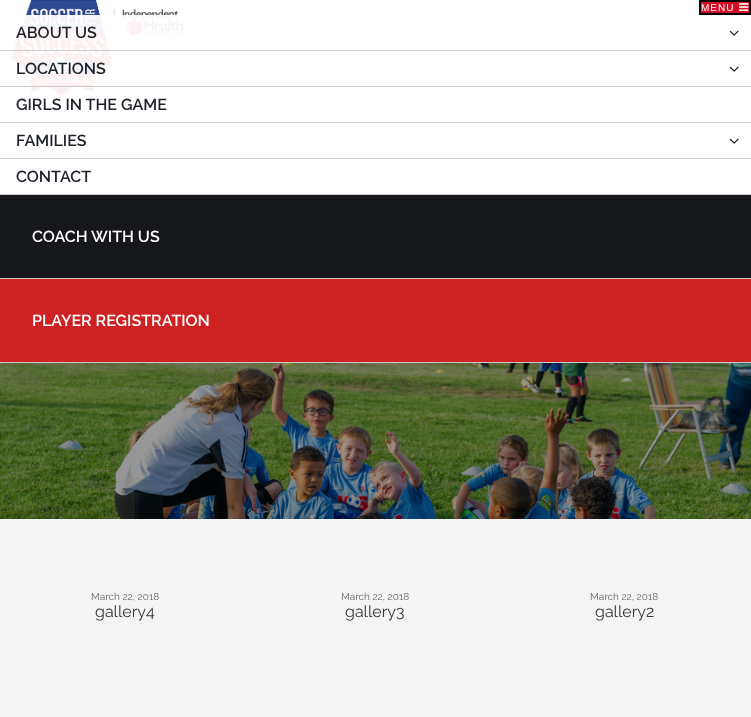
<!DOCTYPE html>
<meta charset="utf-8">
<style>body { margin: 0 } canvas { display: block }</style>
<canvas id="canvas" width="751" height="717"></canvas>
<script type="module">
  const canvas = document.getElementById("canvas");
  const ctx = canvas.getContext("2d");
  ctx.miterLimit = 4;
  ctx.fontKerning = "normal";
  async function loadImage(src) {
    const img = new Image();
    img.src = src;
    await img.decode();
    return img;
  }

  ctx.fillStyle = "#ffffff";
  ctx.fillRect(0, 0, 751, 717);
  ctx.drawImage(await loadImage("img1.png"), 10, 0, 176, 97);
  ctx.fillStyle = "#d30e27";
  ctx.beginPath();
  ctx.rect(700, 1, 50, 13);
  ctx.fill();
  ctx.strokeStyle = "#000000";
  ctx.lineWidth = 2;
  ctx.stroke();
  ctx.letterSpacing = "1px";
  ctx.font = "10px Liberation Sans";
  ctx.fillStyle = "#ffffff";
  ctx.fillText("MENU", 701, 11);
  ctx.drawImage(await loadImage("img2.png"), 739, 3, 10, 8);
  ctx.fillStyle = "rgba(255, 255, 255, 0.94)";
  ctx.fillRect(10, 15, 176, 82);
  ctx.fillStyle = "#cccccc";
  ctx.fillRect(0, 50, 751, 1);
  ctx.letterSpacing = "0px";
  ctx.font = "600 16px Raleway";
  ctx.fillStyle = "#1e212a";
  ctx.fillText("ABOUT US", 16, 38);
  ctx.drawImage(await loadImage("img3.png"), 729, 30, 10, 6);
  ctx.fillStyle = "#cccccc";
  ctx.fillRect(0, 86, 751, 1);
  ctx.fillStyle = "#1e212a";
  ctx.fillText("LOCATIONS", 16, 74);
  ctx.drawImage(await loadImage("img3.png"), 729, 66, 10, 6);
  ctx.fillStyle = "#cccccc";
  ctx.fillRect(0, 122, 751, 1);
  ctx.fillStyle = "#1e212a";
  ctx.fillText("GIRLS IN THE GAME", 16, 110);
  ctx.fillStyle = "#cccccc";
  ctx.fillRect(0, 158, 751, 1);
  ctx.fillStyle = "#1e212a";
  ctx.fillText("FAMILIES", 16, 146);
  ctx.drawImage(await loadImage("img3.png"), 729, 138, 10, 6);
  ctx.fillStyle = "#cccccc";
  ctx.fillRect(0, 194, 751, 1);
  ctx.fillStyle = "#1e212a";
  ctx.fillText("CONTACT", 16, 182);
  ctx.fillStyle = "#cccccc";
  ctx.fillRect(0, 278, 751, 1);
  ctx.fillStyle = "#15171a";
  ctx.fillRect(0, 195, 751, 83);
  ctx.fillStyle = "#ffffff";
  ctx.fillText("COACH WITH US", 32, 242);
  ctx.fillStyle = "#cccccc";
  ctx.fillRect(0, 362, 751, 1);
  ctx.fillStyle = "#cd2122";
  ctx.fillRect(0, 279, 751, 83);
  ctx.fillStyle = "#ffffff";
  ctx.fillText("PLAYER REGISTRATION", 32, 326);
  ctx.drawImage(await loadImage("img4.png"), 0, 363, 751, 156);
  ctx.fillStyle = "#f4f4f4";
  ctx.fillRect(0, 519, 751, 198);
  ctx.font = "10px Raleway";
  ctx.fillStyle = "#666666";
  ctx.fillText("March 22, 2018", 91, 600);
  ctx.font = "16px Raleway";
  ctx.fillStyle = "#363636";
  ctx.fillText("gallery4", 95, 617);
  ctx.font = "10px Raleway";
  ctx.fillStyle = "#666666";
  ctx.fillText("March 22, 2018", 341, 600);
  ctx.font = "16px Raleway";
  ctx.fillStyle = "#363636";
  ctx.fillText("gallery3", 345, 617);
  ctx.font = "10px Raleway";
  ctx.fillStyle = "#666666";
  ctx.fillText("March 22, 2018", 590, 600);
  ctx.font = "16px Raleway";
  ctx.fillStyle = "#363636";
  ctx.fillText("gallery2", 595, 617);
</script>
